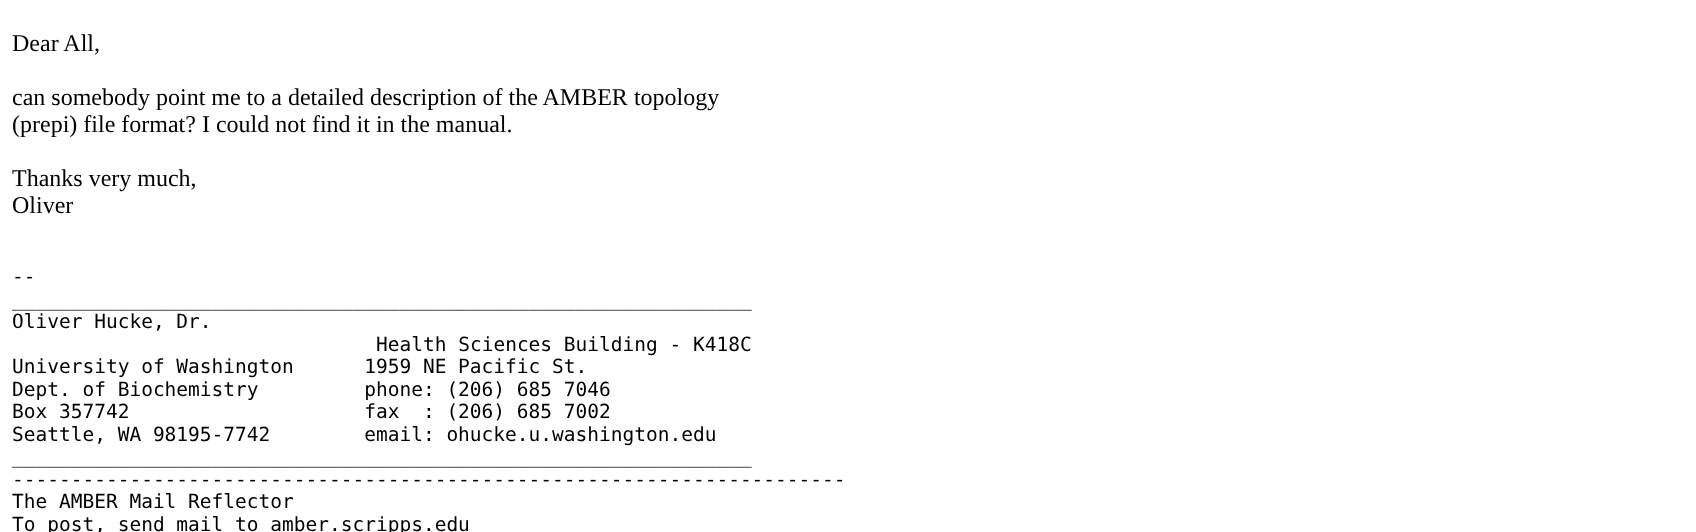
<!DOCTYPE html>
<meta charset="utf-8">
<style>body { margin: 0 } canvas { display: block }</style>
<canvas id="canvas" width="1696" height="532"></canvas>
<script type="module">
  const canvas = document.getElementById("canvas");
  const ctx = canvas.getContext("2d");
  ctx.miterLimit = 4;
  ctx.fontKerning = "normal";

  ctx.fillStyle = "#ffffff";
  ctx.fillRect(0, 0, 1696, 532);
  ctx.font = "24px Liberation Serif";
  ctx.fillStyle = "#000000";
  ctx.fillText("Dear All,", 12, 51);
  ctx.fillText("can somebody point me to a detailed description of the AMBER topology", 12, 105);
  ctx.fillText("(prepi) file format? I could not find it in the manual.", 12, 132);
  ctx.fillText("Thanks very much,", 12, 186);
  ctx.fillText("Oliver", 12, 213);
  ctx.font = "19.5px DejaVu Sans Mono";
  ctx.fillText("--", 12, 283);
  ctx.fillText("_______________________________________________________________", 12, 306);
  ctx.fillText("Oliver Hucke, Dr.", 12, 328);
  ctx.fillText("Health Sciences Building - K418C", 376, 351);
  ctx.fillText("University of Washington      1959 NE Pacific St.", 12, 373);
  ctx.fillText("Dept. of Biochemistry         phone: (206) 685 7046", 12, 396);
  ctx.fillText("Box 357742                    fax  : (206) 685 7002", 12, 418);
  ctx.fillText("Seattle, WA 98195-7742        email: ohucke.u.washington.edu", 12, 441);
  ctx.fillText("_______________________________________________________________", 12, 463);
  ctx.fillText("-----------------------------------------------------------------------", 12, 486);
  ctx.fillText("The AMBER Mail Reflector", 12, 508);
  ctx.fillText("To post, send mail to amber.scripps.edu", 12, 531);
</script>
